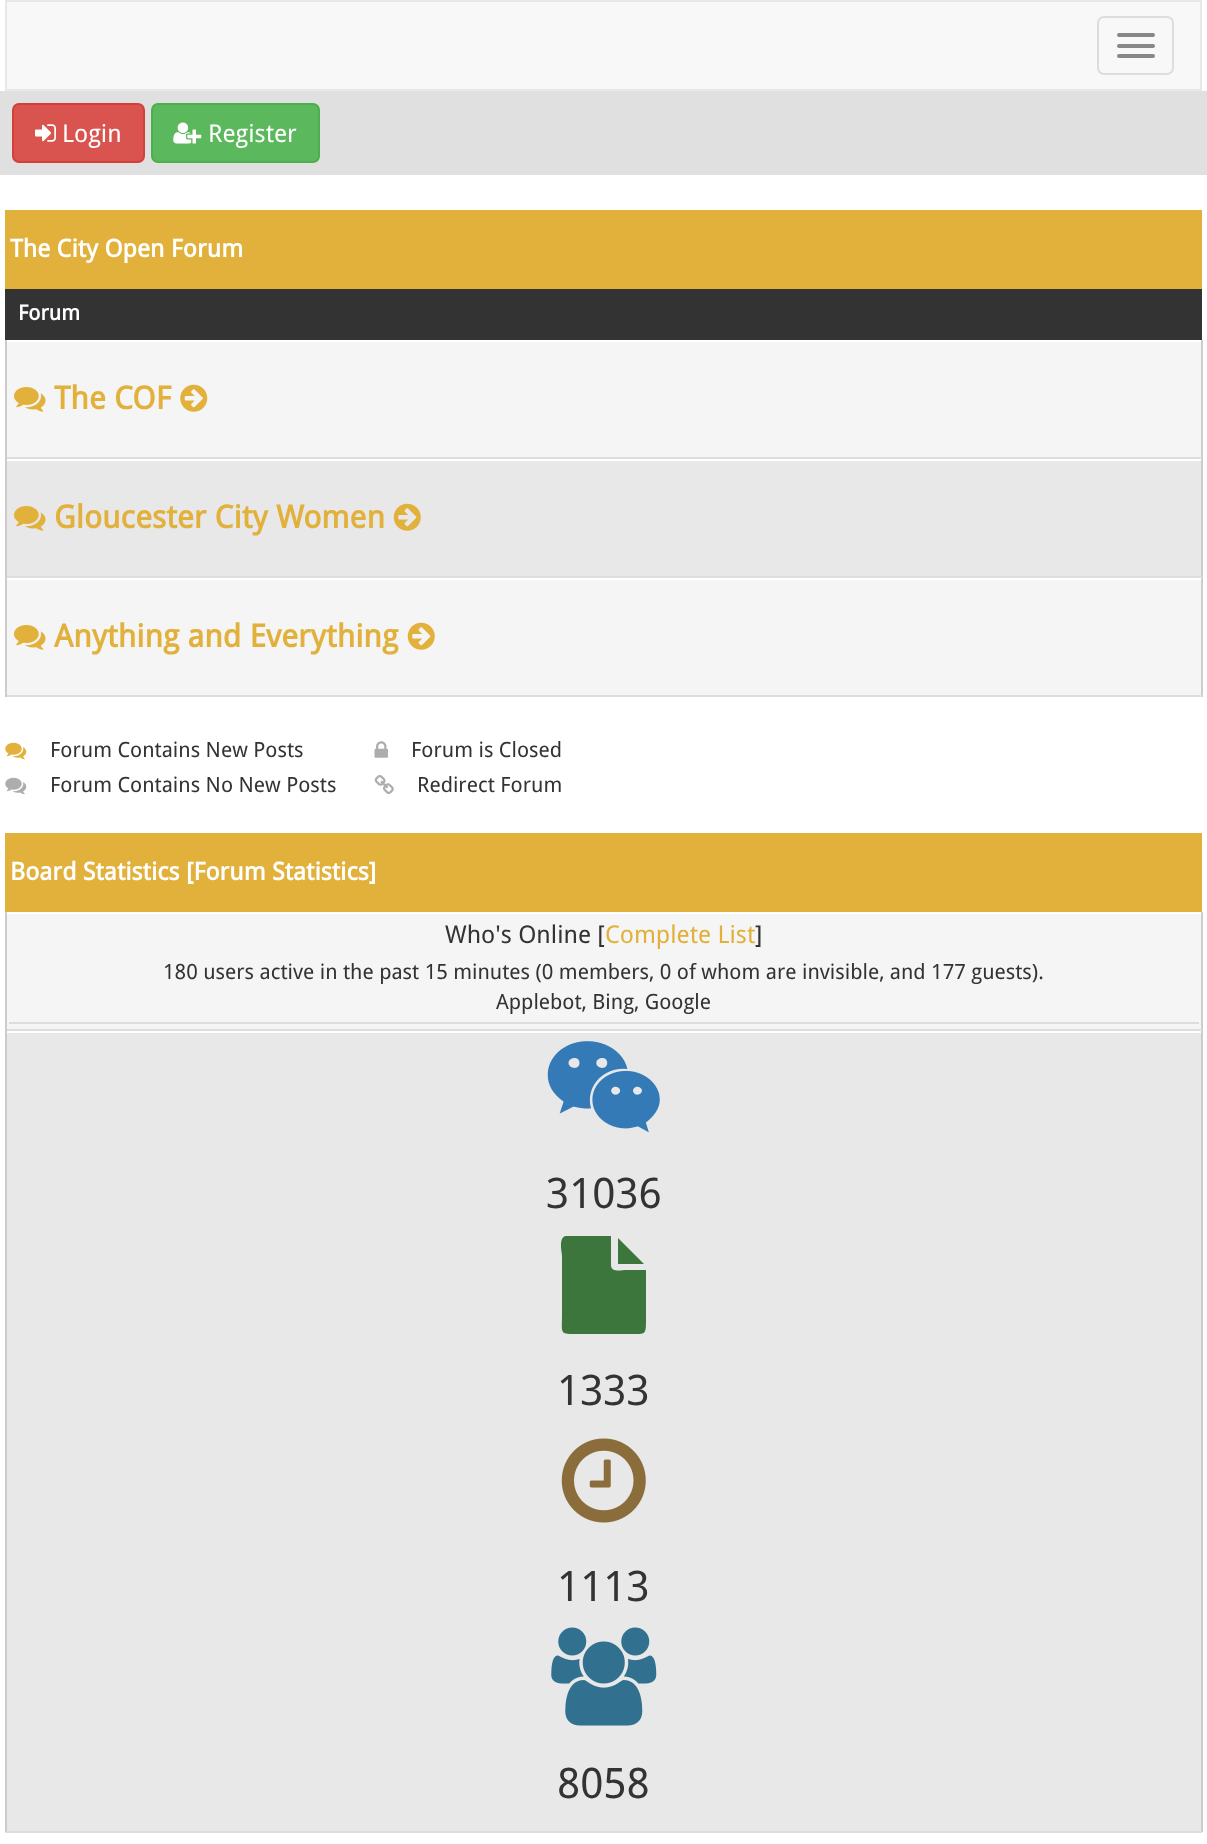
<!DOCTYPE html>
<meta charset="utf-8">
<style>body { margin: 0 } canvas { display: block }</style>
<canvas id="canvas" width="1207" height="1844"></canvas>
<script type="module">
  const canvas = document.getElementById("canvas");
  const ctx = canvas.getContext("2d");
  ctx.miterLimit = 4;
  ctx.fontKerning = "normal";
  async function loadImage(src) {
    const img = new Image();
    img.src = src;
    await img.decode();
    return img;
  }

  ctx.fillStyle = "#ffffff";
  ctx.fillRect(0, 0, 1207, 1844);
  ctx.fillStyle = "#f8f8f8";
  ctx.beginPath();
  ctx.rect(6, 1, 1195, 89);
  ctx.fill();
  ctx.strokeStyle = "#e7e7e7";
  ctx.lineWidth = 2;
  ctx.stroke();
  ctx.beginPath();
  ctx.roundRect(1098, 17, 75, 57, 6);
  ctx.strokeStyle = "#dddddd";
  ctx.stroke();
  ctx.fillStyle = "#888888";
  ctx.beginPath();
  ctx.roundRect(1117, 33, 38, 4, 2);
  ctx.fill();
  ctx.beginPath();
  ctx.roundRect(1117, 44, 38, 4, 2);
  ctx.fill();
  ctx.beginPath();
  ctx.roundRect(1117, 54, 38, 4, 2);
  ctx.fill();
  ctx.fillStyle = "#e0e0e0";
  ctx.fillRect(0, 91, 1207, 84);
  ctx.fillStyle = "#d9534f";
  ctx.beginPath();
  ctx.roundRect(13, 104, 131, 58, 6);
  ctx.fill();
  ctx.strokeStyle = "#d43f3a";
  ctx.stroke();
  ctx.drawImage(await loadImage("img1.png"), 35, 124, 21, 18);
  ctx.font = "24.5px Droid Sans";
  ctx.fillStyle = "#ffffff";
  ctx.fillText("Login", 62, 142);
  ctx.fillStyle = "#5cb85c";
  ctx.beginPath();
  ctx.roundRect(152, 104, 167, 58, 6);
  ctx.fill();
  ctx.strokeStyle = "#4cae4c";
  ctx.stroke();
  ctx.drawImage(await loadImage("img2.png"), 173, 122, 29, 22);
  ctx.fillStyle = "#ffffff";
  ctx.fillText("Register", 208, 142);
  ctx.fillStyle = "#e2b13c";
  ctx.fillRect(5, 210, 1197, 79);
  ctx.font = "bold 24.5px Droid Sans";
  ctx.fillStyle = "#ffffff";
  ctx.fillText("The City Open Forum", 10, 257);
  ctx.fillStyle = "#333333";
  ctx.fillRect(5, 289, 1197, 51);
  ctx.font = "bold 21px Droid Sans";
  ctx.fillStyle = "#ffffff";
  ctx.fillText("Forum", 18, 320);
  ctx.fillStyle = "#f5f5f5";
  ctx.fillRect(7, 342, 1194, 115);
  ctx.fillStyle = "#cccccc";
  ctx.fillRect(1201, 340, 2, 357);
  ctx.fillStyle = "#dddddd";
  ctx.fillRect(5, 457, 1197, 2);
  ctx.fillStyle = "#cccccc";
  ctx.fillRect(5, 340, 2, 119);
  ctx.drawImage(await loadImage("img3.png"), 14, 387, 32, 25);
  ctx.font = "bold 31.5px Droid Sans";
  ctx.fillStyle = "#e2b13c";
  ctx.fillText("The COF", 54, 409);
  ctx.drawImage(await loadImage("img4.png"), 180, 384, 28, 28);
  ctx.fillStyle = "#e8e8e8";
  ctx.fillRect(7, 461, 1194, 115);
  ctx.fillStyle = "#dddddd";
  ctx.fillRect(5, 576, 1197, 2);
  ctx.fillStyle = "#cccccc";
  ctx.fillRect(5, 459, 2, 119);
  ctx.drawImage(await loadImage("img5.png"), 14, 506, 32, 25);
  ctx.fillStyle = "#e2b13c";
  ctx.fillText("Gloucester City Women", 54, 528);
  ctx.drawImage(await loadImage("img6.png"), 393, 503, 28, 28);
  ctx.fillStyle = "#f5f5f5";
  ctx.fillRect(7, 580, 1194, 115);
  ctx.fillStyle = "#dddddd";
  ctx.fillRect(5, 695, 1197, 2);
  ctx.fillStyle = "#cccccc";
  ctx.fillRect(5, 578, 2, 119);
  ctx.drawImage(await loadImage("img3.png"), 14, 625, 32, 25);
  ctx.fillStyle = "#e2b13c";
  ctx.fillText("Anything and Everything", 54, 647);
  ctx.drawImage(await loadImage("img7.png"), 407, 622, 28, 28);
  ctx.drawImage(await loadImage("img8.png"), 5, 742, 22, 18);
  ctx.font = "21px Droid Sans";
  ctx.fillStyle = "#333333";
  ctx.fillText("Forum Contains New Posts", 50, 757);
  ctx.drawImage(await loadImage("img9.png"), 5, 777, 22, 18);
  ctx.fillText("Forum Contains No New Posts", 50, 792);
  ctx.drawImage(await loadImage("img10.png"), 374, 741, 14, 17);
  ctx.fillText("Forum is Closed", 411, 757);
  ctx.drawImage(await loadImage("img11.png"), 374, 775, 20, 19);
  ctx.fillText("Redirect Forum", 417, 792);
  ctx.fillStyle = "#e2b13c";
  ctx.fillRect(5, 833, 1197, 79);
  ctx.font = "bold 24.5px Droid Sans";
  ctx.fillStyle = "#ffffff";
  ctx.fillText("Board Statistics [Forum Statistics]", 10, 880);
  ctx.fillStyle = "#f5f5f5";
  ctx.fillRect(7, 914, 1194, 115);
  ctx.fillStyle = "#cccccc";
  ctx.fillRect(1201, 912, 2, 920);
  ctx.fillStyle = "#dddddd";
  ctx.fillRect(5, 1029, 1197, 2);
  ctx.fillStyle = "#cccccc";
  ctx.fillRect(5, 912, 2, 119);
  ctx.font = "24.5px Droid Sans";
  ctx.fillStyle = "#333333";
  ctx.fillText("Who's Online [", 445, 943);
  ctx.fillStyle = "#e2b13c";
  ctx.fillText("Complete List", 605, 943);
  ctx.fillStyle = "#333333";
  ctx.fillText("]", 755, 943);
  ctx.fillStyle = "#dddddd";
  ctx.fillRect(9, 1022, 1190, 2);
  ctx.font = "21px Droid Sans";
  ctx.fillStyle = "#333333";
  ctx.fillText("180 users active in the past 15 minutes (0 members, 0 of whom are invisible, and 177 guests).", 163, 979);
  ctx.fillText("Applebot, Bing, Google", 496, 1009);
  ctx.fillStyle = "#e8e8e8";
  ctx.fillRect(7, 1033, 1194, 798);
  ctx.fillStyle = "#dddddd";
  ctx.fillRect(5, 1831, 1197, 2);
  ctx.fillStyle = "#cccccc";
  ctx.fillRect(5, 1031, 2, 801);
  ctx.drawImage(await loadImage("img12.png"), 547, 1041, 113, 92);
  ctx.font = "42px Droid Sans";
  ctx.fillStyle = "#333333";
  ctx.fillText("31036", 546, 1208);
  ctx.fillStyle = "#3c763d";
  ctx.beginPath();
  ctx.moveTo(618, 1264);
  ctx.lineTo(618, 1238);
  ctx.lineTo(644, 1264);
  ctx.closePath();
  ctx.moveTo(611, 1265);
  ctx.bezierCurveTo(611, 1273, 622, 1270, 626, 1270);
  ctx.lineTo(646, 1270);
  ctx.lineTo(646, 1319);
  ctx.bezierCurveTo(646, 1336, 646, 1334, 628, 1334);
  ctx.lineTo(579, 1334);
  ctx.bezierCurveTo(559, 1334, 562, 1335, 562, 1314);
  ctx.lineTo(562, 1255);
  ctx.bezierCurveTo(562, 1253, 558, 1237, 566, 1236);
  ctx.lineTo(611, 1236);
  ctx.closePath();
  ctx.fill();
  ctx.fillStyle = "#333333";
  ctx.fillText("1333", 557, 1405);
  ctx.drawImage(await loadImage("img13.png"), 561, 1438, 85, 85);
  ctx.fillText("1113", 557, 1601);
  ctx.drawImage(await loadImage("img14.png"), 551, 1627, 106, 99);
  ctx.fillText("8058", 557, 1798);
</script>
